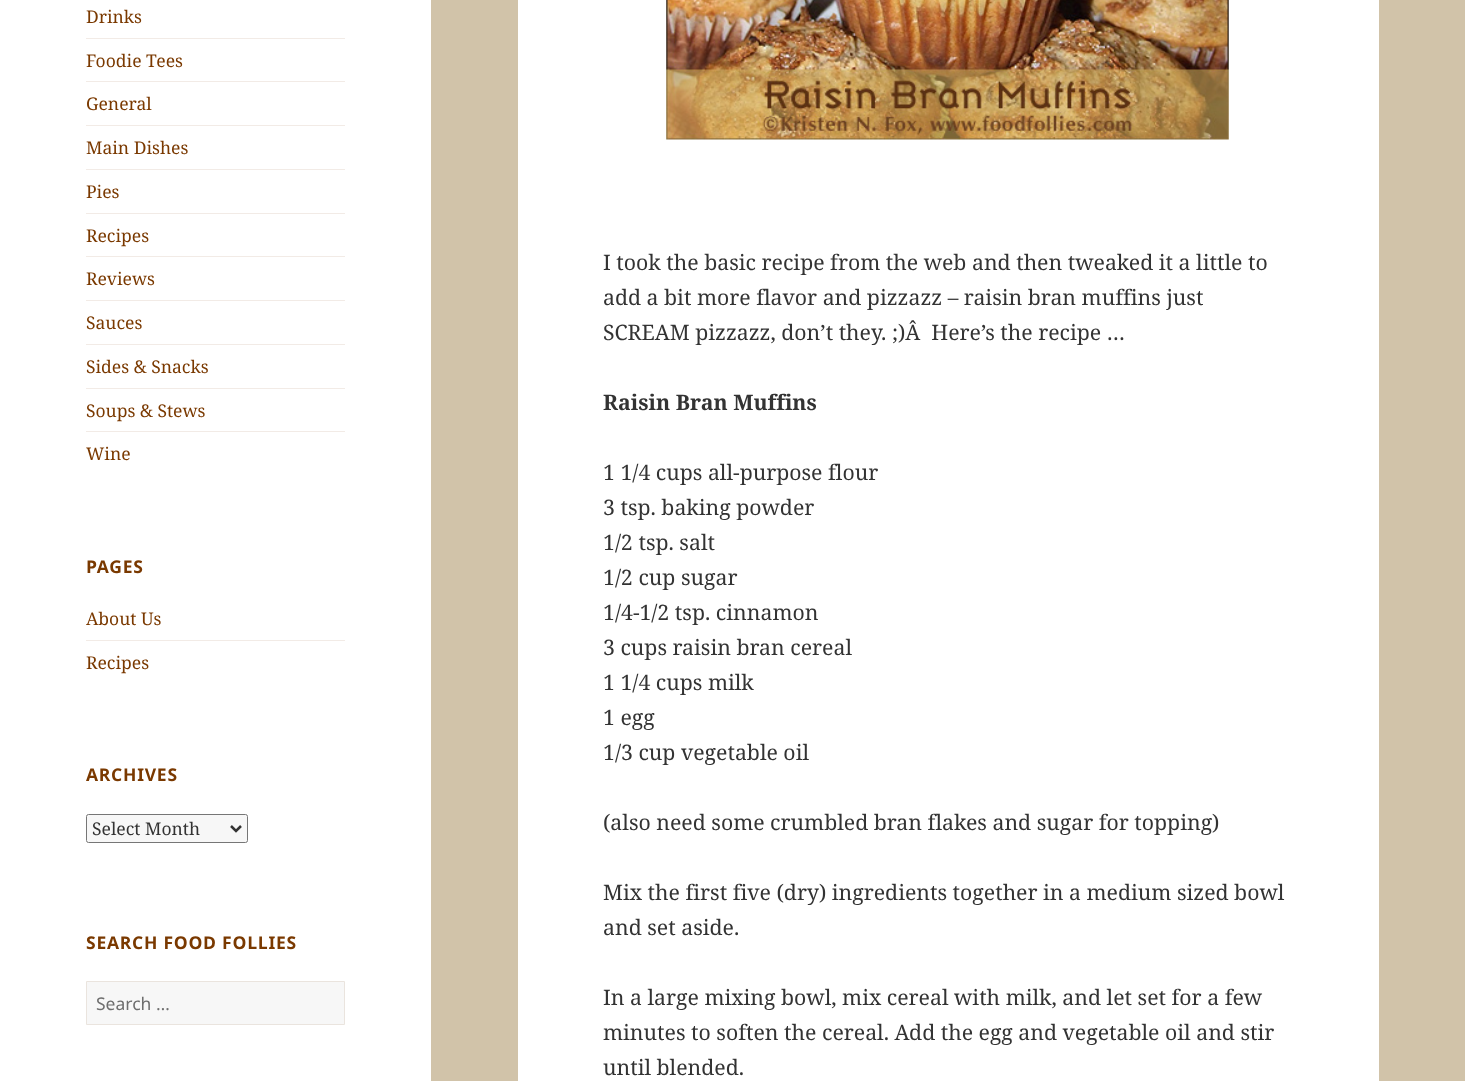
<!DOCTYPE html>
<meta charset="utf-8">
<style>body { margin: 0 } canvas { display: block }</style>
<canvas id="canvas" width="1465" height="1081"></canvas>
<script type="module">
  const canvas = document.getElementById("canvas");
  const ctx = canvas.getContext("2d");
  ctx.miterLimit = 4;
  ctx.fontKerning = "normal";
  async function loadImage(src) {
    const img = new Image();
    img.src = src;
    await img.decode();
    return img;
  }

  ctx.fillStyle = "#d1c3a9";
  ctx.fillRect(0, 0, 1465, 1081);
  ctx.fillStyle = "#ffffff";
  ctx.fillRect(0, 0, 431, 1081);
  ctx.font = "17.5px Noto Serif";
  ctx.fillStyle = "#7a3900";
  ctx.fillText("Drinks", 86, 23);
  ctx.fillStyle = "#f2ebe6";
  ctx.fillRect(86, 38, 259, 1);
  ctx.fillStyle = "#7a3900";
  ctx.fillText("Foodie Tees", 86, 67);
  ctx.fillStyle = "#f2ebe6";
  ctx.fillRect(86, 81, 259, 1);
  ctx.fillStyle = "#7a3900";
  ctx.fillText("General", 86, 110);
  ctx.fillStyle = "#f2ebe6";
  ctx.fillRect(86, 125, 259, 1);
  ctx.fillStyle = "#7a3900";
  ctx.fillText("Main Dishes", 86, 154);
  ctx.fillStyle = "#f2ebe6";
  ctx.fillRect(86, 169, 259, 1);
  ctx.fillStyle = "#7a3900";
  ctx.fillText("Pies", 86, 198);
  ctx.fillStyle = "#f2ebe6";
  ctx.fillRect(86, 213, 259, 1);
  ctx.fillStyle = "#7a3900";
  ctx.fillText("Recipes", 86, 242);
  ctx.fillStyle = "#f2ebe6";
  ctx.fillRect(86, 256, 259, 1);
  ctx.fillStyle = "#7a3900";
  ctx.fillText("Reviews", 86, 285);
  ctx.fillStyle = "#f2ebe6";
  ctx.fillRect(86, 300, 259, 1);
  ctx.fillStyle = "#7a3900";
  ctx.fillText("Sauces", 86, 329);
  ctx.fillStyle = "#f2ebe6";
  ctx.fillRect(86, 344, 259, 1);
  ctx.fillStyle = "#7a3900";
  ctx.fillText("Sides & Snacks", 86, 373);
  ctx.fillStyle = "#f2ebe6";
  ctx.fillRect(86, 388, 259, 1);
  ctx.fillStyle = "#7a3900";
  ctx.fillText("Soups & Stews", 86, 417);
  ctx.fillStyle = "#f2ebe6";
  ctx.fillRect(86, 431, 259, 1);
  ctx.fillStyle = "#7a3900";
  ctx.fillText("Wine", 86, 460);
  ctx.letterSpacing = "0.75px";
  ctx.font = "bold 17.5px Noto Sans";
  ctx.fillText("PAGES", 86, 573);
  ctx.letterSpacing = "0px";
  ctx.font = "17.5px Noto Serif";
  ctx.fillText("About Us", 86, 625);
  ctx.fillStyle = "#f2ebe6";
  ctx.fillRect(86, 640, 259, 1);
  ctx.fillStyle = "#7a3900";
  ctx.fillText("Recipes", 86, 669);
  ctx.letterSpacing = "0.75px";
  ctx.font = "bold 17.5px Noto Sans";
  ctx.fillText("ARCHIVES", 86, 781);
  ctx.fillStyle = "#f7f7f7";
  ctx.beginPath();
  ctx.roundRect(86.5, 814.5, 161, 28, 2);
  ctx.fill();
  ctx.strokeStyle = "#767676";
  ctx.stroke();
  ctx.beginPath();
  ctx.moveTo(231, 826);
  ctx.lineTo(236, 831);
  ctx.lineTo(241, 826);
  ctx.strokeStyle = "#333333";
  ctx.lineWidth = 2.5;
  ctx.stroke();
  ctx.letterSpacing = "0px";
  ctx.font = "17.5px Noto Serif";
  ctx.fillStyle = "#333333";
  ctx.fillText("Select Month", 92, 835);
  ctx.letterSpacing = "0.75px";
  ctx.font = "bold 17.5px Noto Sans";
  ctx.fillStyle = "#7a3900";
  ctx.fillText("SEARCH FOOD FOLLIES", 86, 949);
  ctx.fillStyle = "#f7f7f7";
  ctx.beginPath();
  ctx.rect(86.5, 981.5, 258, 43);
  ctx.fill();
  ctx.strokeStyle = "#eae4de";
  ctx.lineWidth = 1;
  ctx.stroke();
  ctx.letterSpacing = "0px";
  ctx.font = "17.5px Noto Sans";
  ctx.fillStyle = "#6e6e6e";
  ctx.fillText("Search …", 96, 1010);
  ctx.fillStyle = "#ffffff";
  ctx.fillRect(518, 0, 861, 1081);
  ctx.drawImage(await loadImage("img1.png"), 666, 0, 563, 140);
  ctx.font = "21.25px Noto Serif";
  ctx.fillStyle = "#333333";
  ctx.fillText("I took the basic recipe from the web and then tweaked it a little to", 603, 270);
  ctx.fillText("add a bit more flavor and pizzazz – raisin bran muffins just", 603, 305);
  ctx.fillText("SCREAM pizzazz, don’t they. ;)Â  Here’s the recipe …", 603, 340);
  ctx.font = "bold 21.25px Noto Serif";
  ctx.fillText("Raisin Bran Muffins", 603, 410);
  ctx.font = "21.25px Noto Serif";
  ctx.fillText("1 1/4 cups all-purpose flour", 603, 480);
  ctx.fillText("3 tsp. baking powder", 603, 515);
  ctx.fillText("1/2 tsp. salt", 603, 550);
  ctx.fillText("1/2 cup sugar", 603, 585);
  ctx.fillText("1/4-1/2 tsp. cinnamon", 603, 620);
  ctx.fillText("3 cups raisin bran cereal", 603, 655);
  ctx.fillText("1 1/4 cups milk", 603, 690);
  ctx.fillText("1 egg", 603, 725);
  ctx.fillText("1/3 cup vegetable oil", 603, 760);
  ctx.fillText("(also need some crumbled bran flakes and sugar for topping)", 603, 830);
  ctx.fillText("Mix the first five (dry) ingredients together in a medium sized bowl", 603, 900);
  ctx.fillText("and set aside.", 603, 935);
  ctx.fillText("In a large mixing bowl, mix cereal with milk, and let set for a few", 603, 1005);
  ctx.fillText("minutes to soften the cereal. Add the egg and vegetable oil and stir", 603, 1040);
  ctx.fillText("until blended.", 603, 1075);
</script>
